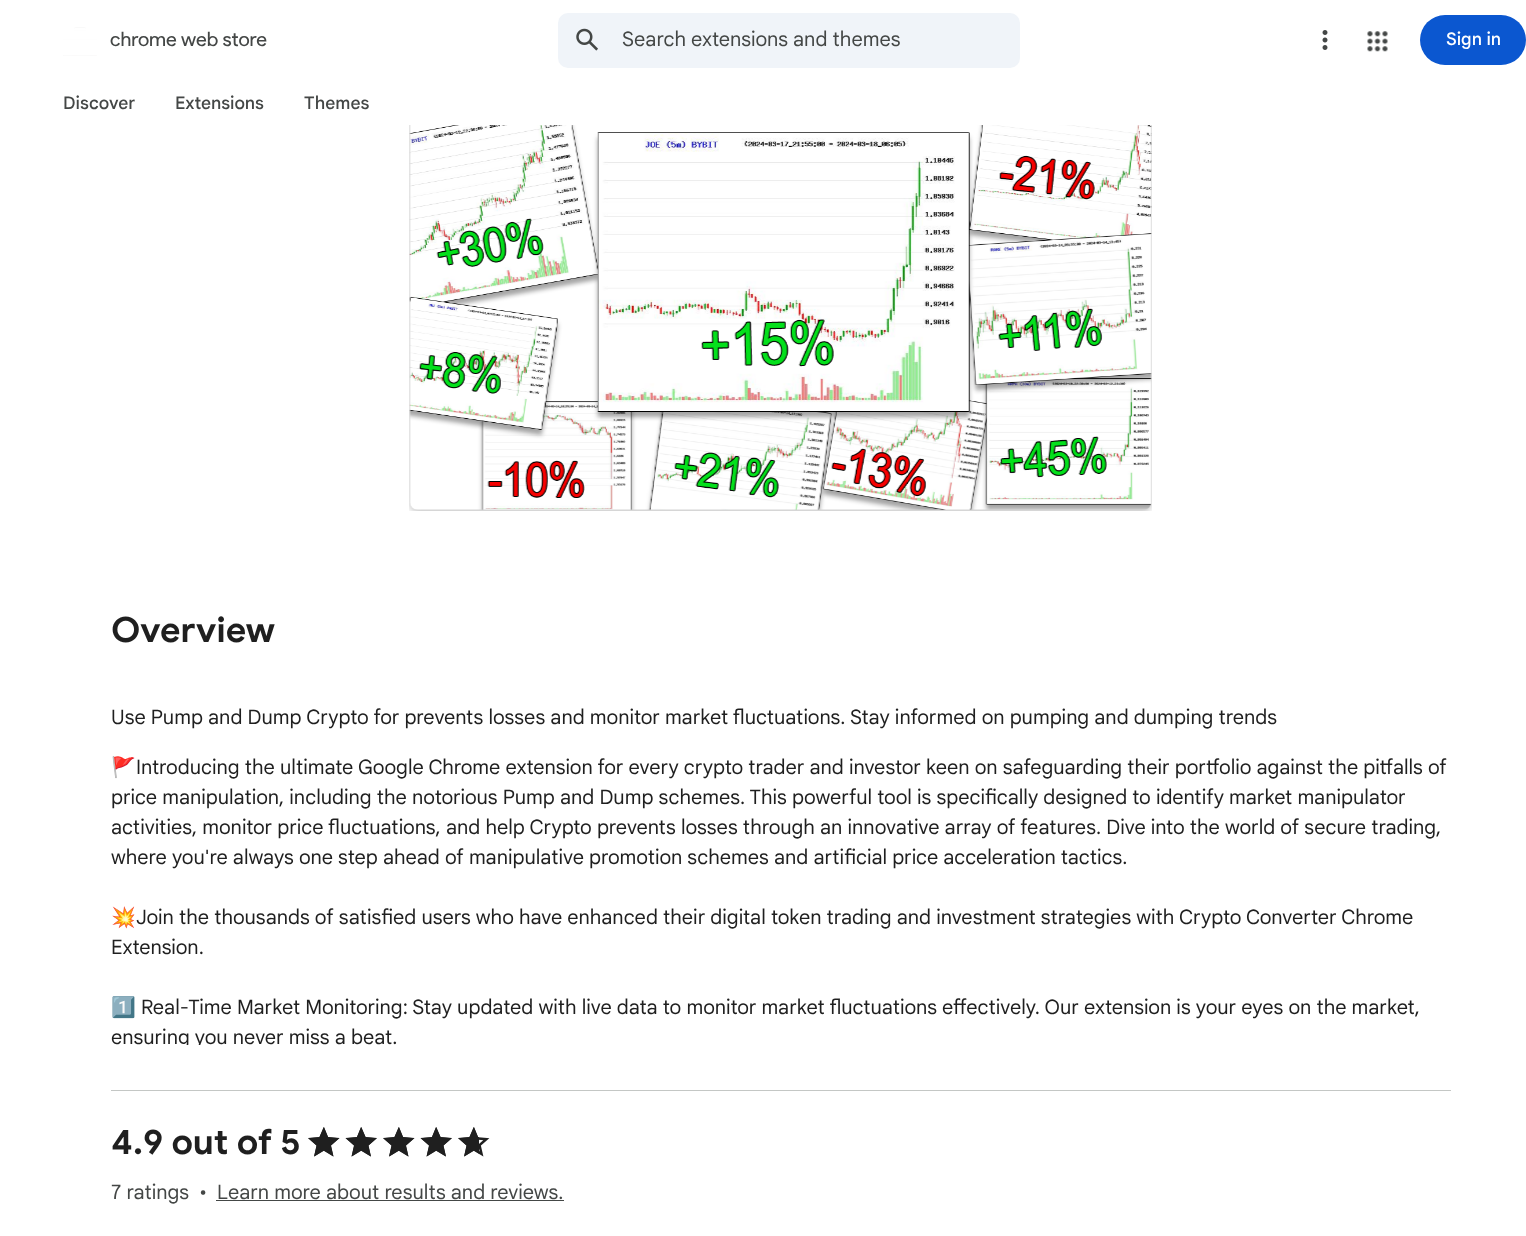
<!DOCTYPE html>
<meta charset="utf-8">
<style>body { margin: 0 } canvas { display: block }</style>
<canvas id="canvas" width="1526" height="1236"></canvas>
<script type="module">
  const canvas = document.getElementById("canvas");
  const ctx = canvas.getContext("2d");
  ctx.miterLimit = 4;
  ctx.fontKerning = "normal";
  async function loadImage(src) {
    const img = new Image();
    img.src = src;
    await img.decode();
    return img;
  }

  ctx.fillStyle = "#ffffff";
  ctx.fillRect(0, 0, 1526, 1236);
  ctx.drawImage(await loadImage("img1.png"), 63, 27, 34, 29);
  ctx.font = "20px Product Sans";
  ctx.fillStyle = "#444746";
  ctx.fillText("chrome web store", 110, 46);
  ctx.fillStyle = "#f0f4f9";
  ctx.beginPath();
  ctx.roundRect(558, 13, 462, 55, 10);
  ctx.fill();
  ctx.drawImage(await loadImage("img2.png"), 576, 28, 22, 23);
  ctx.font = "20px Google Sans";
  ctx.fillStyle = "#444746";
  ctx.fillText("Search extensions and themes", 622, 46);
  ctx.drawImage(await loadImage("img3.png"), 1322, 30, 6, 20);
  ctx.drawImage(await loadImage("img4.png"), 1367, 31, 21, 21);
  ctx.fillStyle = "#0b57d0";
  ctx.beginPath();
  ctx.roundRect(1420, 15, 106, 50, 25);
  ctx.fill();
  ctx.font = "500 17.5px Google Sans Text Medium";
  ctx.fillStyle = "#ffffff";
  ctx.fillText("Sign in", 1446, 45);
  ctx.fillStyle = "#444746";
  ctx.fillText("Discover", 63, 109);
  ctx.fillText("Extensions", 175, 109);
  ctx.fillText("Themes", 304, 109);
  ctx.drawImage(await loadImage("img5.png"), 409, 125, 743, 386);
  ctx.fillStyle = "#c4c7c5";
  ctx.fillRect(111, 1090, 1340, 1);
  ctx.font = "bold 35px Google Sans";
  ctx.fillStyle = "#1f1f1f";
  ctx.fillText("Overview", 111, 642);
  ctx.font = "20px Google Sans";
  ctx.fillText("Use Pump and Dump Crypto for prevents losses and monitor market fluctuations. Stay informed on pumping and dumping trends", 111, 724);
  ctx.save();
  ctx.beginPath();
  ctx.rect(111, 683, 1340, 362);
  ctx.clip();
  ctx.font = "20px Noto Color Emoji";
  ctx.fillText("🚩", 111, 774);
  ctx.restore();
  ctx.fillText("Introducing the ultimate Google Chrome extension for every crypto trader and investor keen on safeguarding their portfolio against the pitfalls of", 136, 774);
  ctx.fillText("price manipulation, including the notorious Pump and Dump schemes. This powerful tool is specifically designed to identify market manipulator", 111, 804);
  ctx.fillText("activities, monitor price fluctuations, and help Crypto prevents losses through an innovative array of features. Dive into the world of secure trading,", 111, 834);
  ctx.fillText("where you're always one step ahead of manipulative promotion schemes and artificial price acceleration tactics.", 111, 864);
  ctx.save();
  ctx.beginPath();
  ctx.rect(111, 683, 1340, 362);
  ctx.clip();
  ctx.font = "20px Noto Color Emoji";
  ctx.fillText("💥", 111, 924);
  ctx.restore();
  ctx.fillText("Join the thousands of satisfied users who have enhanced their digital token trading and investment strategies with Crypto Converter Chrome", 136, 924);
  ctx.fillText("Extension.", 111, 954);
  ctx.save();
  ctx.beginPath();
  ctx.rect(111, 683, 1340, 362);
  ctx.clip();
  ctx.font = "20px Noto Color Emoji";
  ctx.fillText("1️⃣", 111, 1014);
  ctx.restore();
  ctx.fillText("Real-Time Market Monitoring: Stay updated with live data to monitor market fluctuations effectively. Our extension is your eyes on the market,", 141, 1014);
  ctx.save();
  ctx.beginPath();
  ctx.rect(111, 683, 1340, 362);
  ctx.clip();
  ctx.fillText("ensuring you never miss a beat.", 111, 1044);
  ctx.restore();
  ctx.font = "bold 35px Google Sans";
  ctx.fillText("4.9 out of 5", 111, 1154);
  ctx.drawImage(await loadImage("img6.png"), 308, 1127, 32, 30);
  ctx.drawImage(await loadImage("img7.png"), 345, 1127, 32, 30);
  ctx.drawImage(await loadImage("img6.png"), 383, 1127, 32, 30);
  ctx.drawImage(await loadImage("img7.png"), 420, 1127, 32, 30);
  ctx.drawImage(await loadImage("img6.png"), 458, 1127, 32, 30);
  ctx.beginPath();
  ctx.moveTo(324, 1150.5);
  ctx.lineTo(333.5, 1156.5);
  ctx.lineTo(331, 1145.5);
  ctx.lineTo(339.5, 1138);
  ctx.lineTo(328, 1137);
  ctx.lineTo(324, 1127);
  ctx.lineTo(319.5, 1137);
  ctx.lineTo(308, 1138);
  ctx.lineTo(316.5, 1145.5);
  ctx.lineTo(314, 1156.5);
  ctx.closePath();
  ctx.fill();
  ctx.beginPath();
  ctx.moveTo(361, 1150.5);
  ctx.lineTo(371, 1156.5);
  ctx.lineTo(368.5, 1145.5);
  ctx.lineTo(377, 1138);
  ctx.lineTo(365.5, 1137);
  ctx.lineTo(361, 1127);
  ctx.lineTo(357, 1137);
  ctx.lineTo(345.5, 1138);
  ctx.lineTo(354, 1145.5);
  ctx.lineTo(351.5, 1156.5);
  ctx.closePath();
  ctx.fill();
  ctx.beginPath();
  ctx.moveTo(399, 1150.5);
  ctx.lineTo(408.5, 1156.5);
  ctx.lineTo(406, 1145.5);
  ctx.lineTo(414.5, 1138);
  ctx.lineTo(403, 1137);
  ctx.lineTo(399, 1127);
  ctx.lineTo(394.5, 1137);
  ctx.lineTo(383, 1138);
  ctx.lineTo(391.5, 1145.5);
  ctx.lineTo(389, 1156.5);
  ctx.closePath();
  ctx.fill();
  ctx.beginPath();
  ctx.moveTo(436, 1150.5);
  ctx.lineTo(446, 1156.5);
  ctx.lineTo(443.5, 1145.5);
  ctx.lineTo(452, 1138);
  ctx.lineTo(440.5, 1137);
  ctx.lineTo(436, 1127);
  ctx.lineTo(432, 1137);
  ctx.lineTo(420.5, 1138);
  ctx.lineTo(429, 1145.5);
  ctx.lineTo(426.5, 1156.5);
  ctx.closePath();
  ctx.fill();
  ctx.save();
  ctx.beginPath();
  ctx.rect(455, 1124, 24, 37);
  ctx.clip();
  ctx.beginPath();
  ctx.moveTo(474, 1150.5);
  ctx.lineTo(483.5, 1156.5);
  ctx.lineTo(481, 1145.5);
  ctx.lineTo(489.5, 1138);
  ctx.lineTo(478, 1137);
  ctx.lineTo(474, 1127);
  ctx.lineTo(469.5, 1137);
  ctx.lineTo(458, 1138);
  ctx.lineTo(466.5, 1145.5);
  ctx.lineTo(464, 1156.5);
  ctx.closePath();
  ctx.fill();
  ctx.restore();
  ctx.font = "20px Google Sans";
  ctx.fillStyle = "#444746";
  ctx.fillText("7 ratings", 111, 1199);
  ctx.fillText("•", 199, 1199);
  ctx.fillText("Learn more about results and reviews.", 217, 1199);
  ctx.fillRect(216, 1200, 348, 1);
</script>
